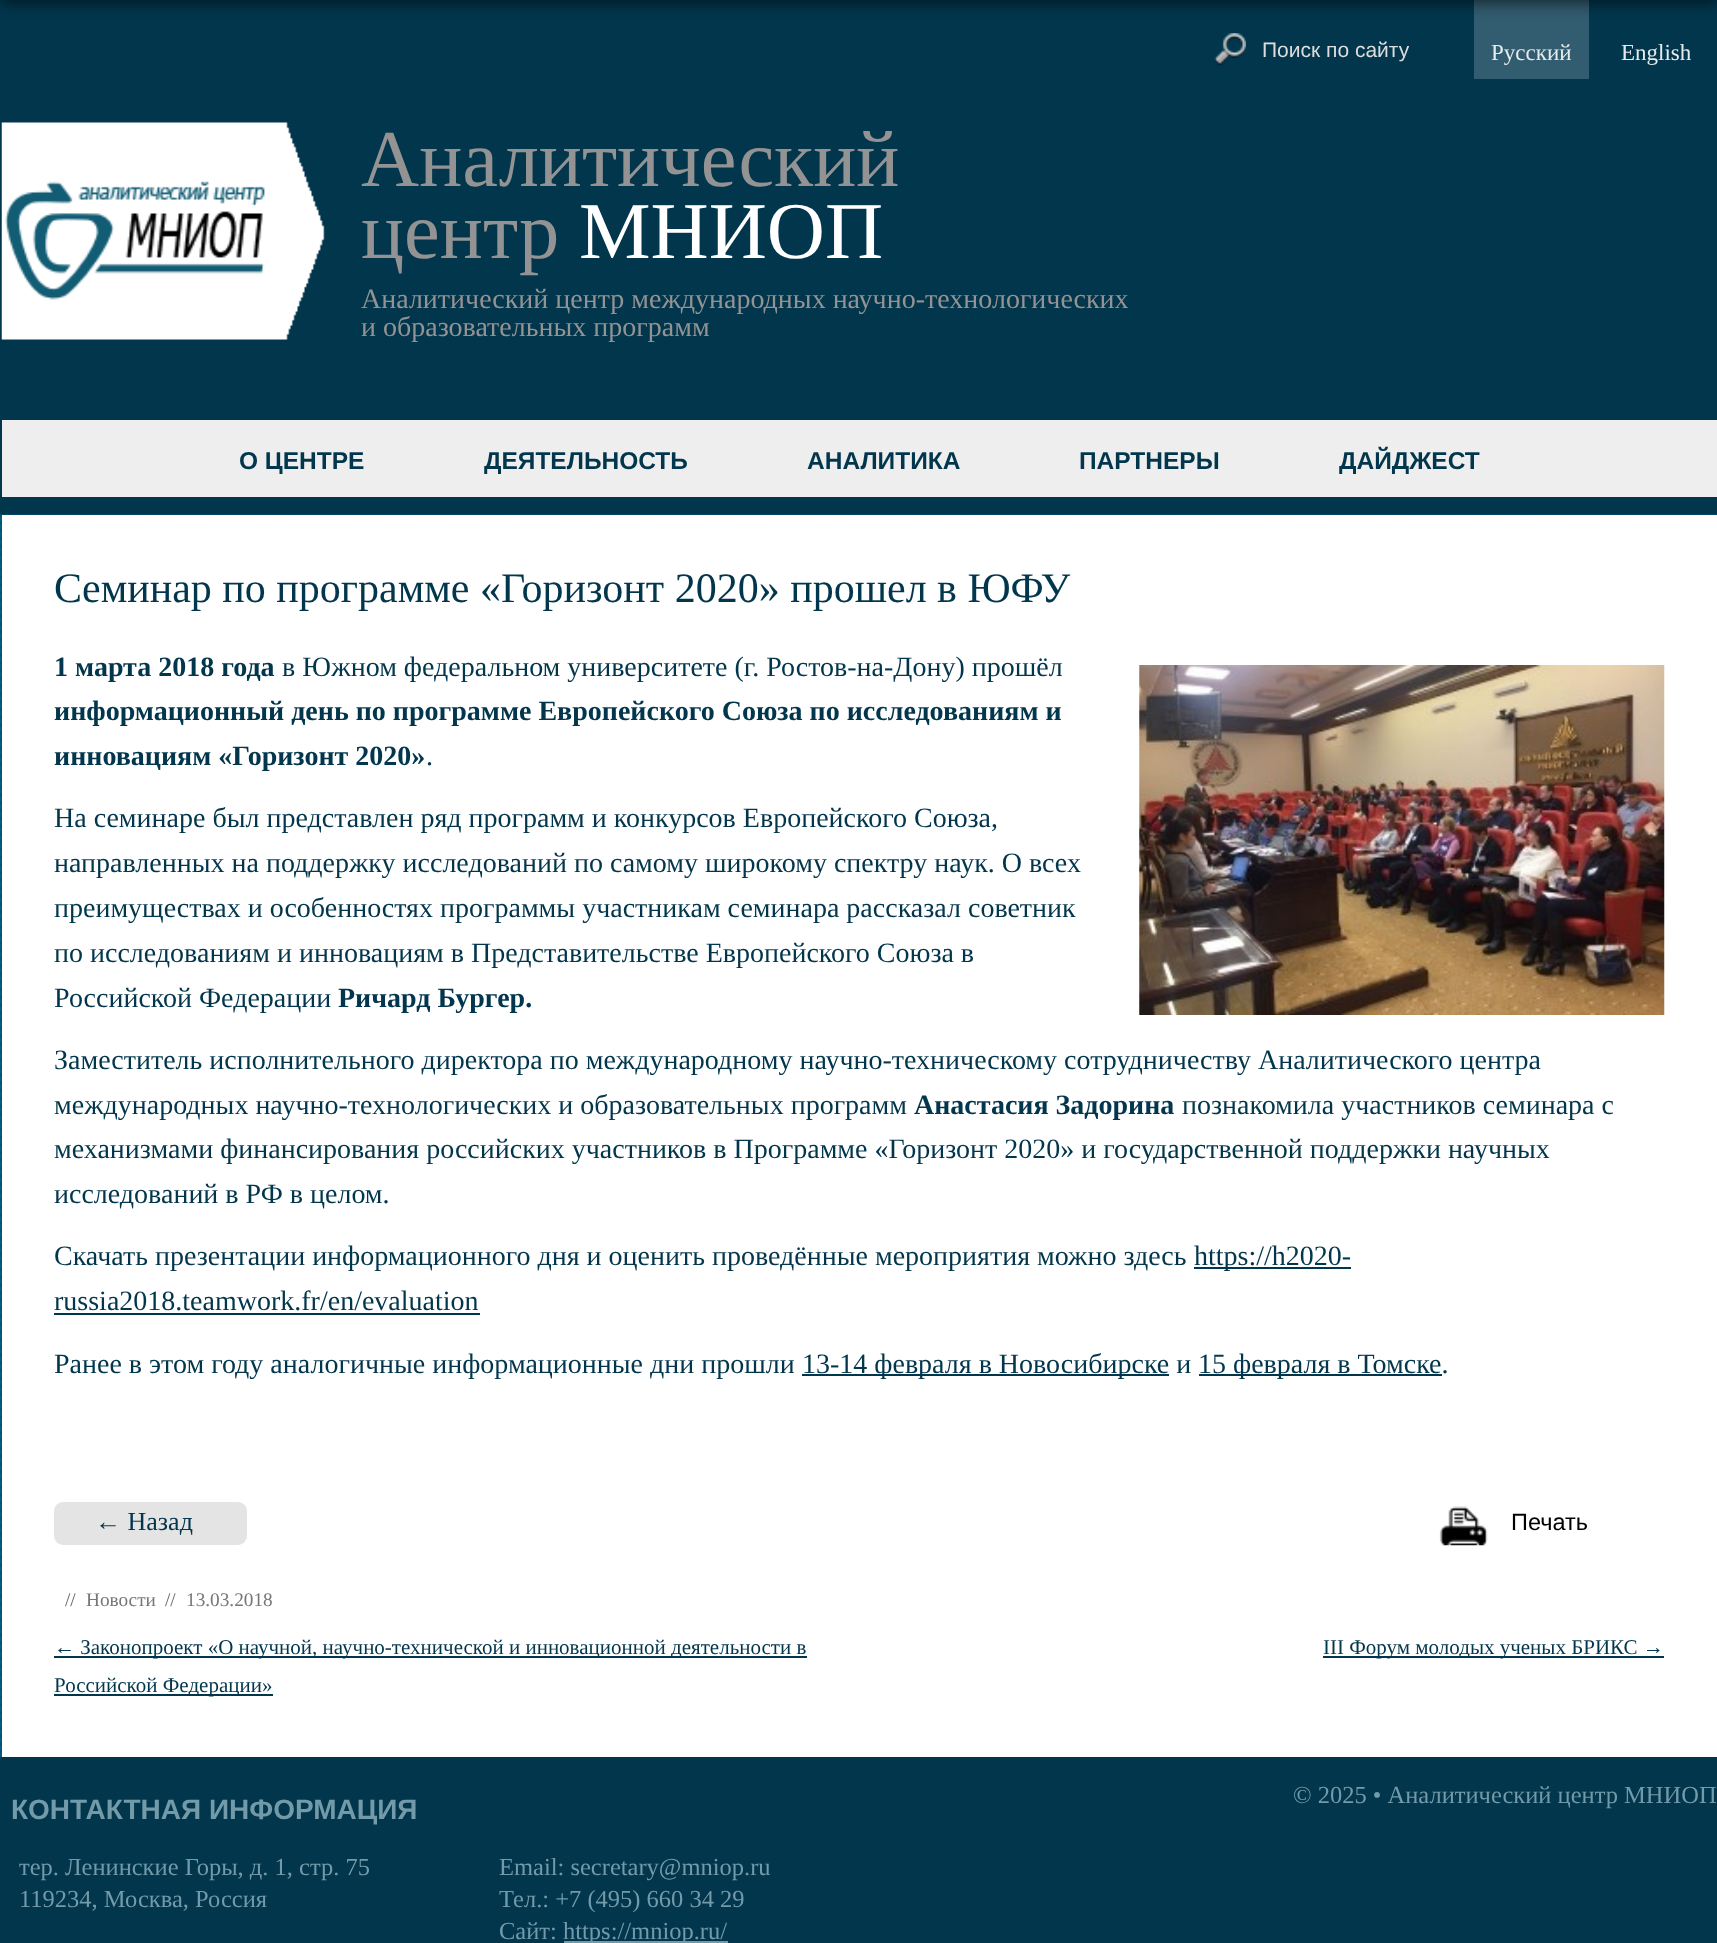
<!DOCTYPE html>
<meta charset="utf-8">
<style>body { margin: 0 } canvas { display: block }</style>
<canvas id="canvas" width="1717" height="1943"></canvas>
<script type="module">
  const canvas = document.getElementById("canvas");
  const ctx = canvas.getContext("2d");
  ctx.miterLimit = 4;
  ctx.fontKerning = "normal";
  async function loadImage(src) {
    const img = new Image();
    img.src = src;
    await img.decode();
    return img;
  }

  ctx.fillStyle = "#02364d";
  ctx.fillRect(0, 0, 1717, 1943);
  ctx.fillStyle = "#325c6f";
  ctx.fillRect(1474, 0, 115, 79);
  ctx.fillStyle = "rgba(0, 0, 0, 0.8)";
  ctx.filter = "blur(9px)";
  ctx.beginPath();
  ctx.rect(0, -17, 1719, 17);
  ctx.fill();
  ctx.filter = "none";
  ctx.drawImage(await loadImage("img1.png"), 1214, 33, 32, 33);
  ctx.font = "21px Liberation Sans";
  ctx.fillStyle = "#dddddd";
  ctx.fillText("Поиск по сайту", 1262, 57);
  ctx.font = "23px Liberation Serif";
  ctx.fillStyle = "#e6ebed";
  ctx.fillText("Русский", 1491, 60);
  ctx.fillText("English", 1621, 60);
  ctx.drawImage(await loadImage("img2.png"), 1, 122, 324, 218);
  ctx.font = "80.5px Liberation Serif";
  ctx.fillStyle = "#939393";
  ctx.fillText("Аналитический", 361, 186);
  ctx.fillText("центр", 361, 258);
  ctx.fillStyle = "#ffffff";
  ctx.fillText("МНИОП", 579, 258);
  ctx.font = "28px Liberation Serif";
  ctx.fillStyle = "#939393";
  ctx.fillText("Аналитический центр международных научно-технологических", 361, 308);
  ctx.fillText("и образовательных программ", 361, 336);
  ctx.fillStyle = "#eeeeee";
  ctx.fillRect(2, 420, 1715, 77);
  ctx.font = "bold 24.5px Liberation Sans";
  ctx.fillStyle = "#02364d";
  ctx.fillText("О ЦЕНТРЕ", 239, 469);
  ctx.fillText("ДЕЯТЕЛЬНОСТЬ", 484, 469);
  ctx.fillText("АНАЛИТИКА", 807, 469);
  ctx.fillText("ПАРТНЕРЫ", 1079, 469);
  ctx.fillText("ДАЙДЖЕСТ", 1339, 469);
  ctx.drawImage(await loadImage("img3.png"), 0, 514, 1717, 1243);
  ctx.fillStyle = "#ffffff";
  ctx.fillRect(2, 515, 1715, 1242);
  ctx.font = "42px Liberation Serif";
  ctx.fillStyle = "#02364d";
  ctx.fillText("Cеминар по программе «Горизонт 2020» прошел в ЮФУ", 54, 602);
  ctx.font = "bold 28px Liberation Serif";
  ctx.fillText("1 марта 2018 года", 54, 676);
  ctx.drawImage(await loadImage("img4.png"), 1139, 665, 526, 350);
  ctx.font = "28px Liberation Serif";
  ctx.fillText("в Южном федеральном университете (г. Ростов-на-Дону) прошёл", 282, 676);
  ctx.font = "bold 28px Liberation Serif";
  ctx.fillText("информационный день по программе Европейского Союза по исследованиям и", 54, 720);
  ctx.fillText("инновациям «Горизонт 2020»", 54, 765);
  ctx.font = "28px Liberation Serif";
  ctx.fillText(".", 426, 765);
  ctx.fillText("На семинаре был представлен ряд программ и конкурсов Европейского Союза,", 54, 827);
  ctx.fillText("направленных на поддержку исследований по самому широкому спектру наук. О всех", 54, 872);
  ctx.fillText("преимуществах и особенностях программы участникам семинара рассказал советник", 54, 917);
  ctx.fillText("по исследованиям и инновациям в Представительстве Европейского Союза в", 54, 962);
  ctx.fillText("Российской Федерации", 54, 1007);
  ctx.font = "bold 28px Liberation Serif";
  ctx.fillText("Ричард Бургер.", 338, 1007);
  ctx.font = "28px Liberation Serif";
  ctx.fillText("Заместитель исполнительного директора по международному научно-техническому сотрудничеству Аналитического центра", 54, 1069);
  ctx.fillText("международных научно-технологических и образовательных программ", 54, 1114);
  ctx.font = "bold 28px Liberation Serif";
  ctx.fillText("Анастасия Задорина", 914, 1114);
  ctx.font = "28px Liberation Serif";
  ctx.fillText("познакомила участников семинара с", 1182, 1114);
  ctx.fillText("механизмами финансирования российских участников в Программе «Горизонт 2020» и государственной поддержки научных", 54, 1158);
  ctx.fillText("исследований в РФ в целом.", 54, 1203);
  ctx.fillText("Скачать презентации информационного дня и оценить проведённые мероприятия можно здесь", 54, 1265);
  ctx.fillRect(1194, 1267, 157, 2);
  ctx.fillText("https://h2020-", 1194, 1265);
  ctx.fillText("russia2018.teamwork.fr/en/evaluation", 54, 1310);
  ctx.fillRect(54, 1313, 426, 2);
  ctx.fillText("Ранее в этом году аналогичные информационные дни прошли", 54, 1373);
  ctx.fillRect(802, 1374, 367, 2);
  ctx.fillText("13-14 февраля в Новосибирске и", 802, 1373);
  ctx.fillRect(1199, 1374, 243, 2);
  ctx.fillText("15 февраля в Томске.", 1198, 1373);
  ctx.fillStyle = "#e4e4e4";
  ctx.beginPath();
  ctx.roundRect(54, 1502, 193, 43, 9);
  ctx.fill();
  ctx.font = "26px Liberation Serif";
  ctx.fillStyle = "#02364d";
  ctx.fillText("← Назад", 95, 1530);
  ctx.drawImage(await loadImage("img5.png"), 1439, 1506, 49, 40);
  ctx.font = "23.5px Liberation Sans";
  ctx.fillStyle = "#000000";
  ctx.fillText("Печать", 1511, 1530);
  ctx.font = "19.25px Liberation Serif";
  ctx.fillStyle = "#666666";
  ctx.fillText("//", 65, 1606);
  ctx.fillStyle = "#777777";
  ctx.fillText("Новости", 86, 1606);
  ctx.fillStyle = "#666666";
  ctx.fillText("//", 165, 1606);
  ctx.fillStyle = "#777777";
  ctx.fillText("13.03.2018", 186, 1606);
  ctx.fillStyle = "#02364d";
  ctx.fillRect(54, 1656, 753, 2);
  ctx.font = "21px Liberation Serif";
  ctx.fillText("← Законопроект «О научной, научно-технической и инновационной деятельности в", 54, 1654);
  ctx.fillRect(54, 1694, 219, 2);
  ctx.fillText("Российской Федерации»", 54, 1692);
  ctx.fillRect(1323, 1656, 341, 2);
  ctx.fillText("III Форум молодых ученых БРИКС →", 1323, 1654);
  ctx.font = "bold 28px Liberation Sans";
  ctx.fillStyle = "#729aa9";
  ctx.fillText("КОНТАКТНАЯ ИНФОРМАЦИЯ", 11, 1819);
  ctx.font = "24.5px Liberation Serif";
  ctx.fillText("тер. Ленинские Горы, д. 1, стр. 75", 19, 1875);
  ctx.fillText("119234, Москва, Россия", 19, 1907);
  ctx.fillText("Email: secretary@mniop.ru", 499, 1875);
  ctx.fillText("Тел.: +7 (495) 660 34 29", 499, 1907);
  ctx.fillText("Сайт:", 499, 1939);
  ctx.fillRect(564, 1941, 164, 2);
  ctx.fillText("https://mniop.ru/", 563, 1939);
  ctx.fillText("© 2025 • Аналитический центр МНИОП", 1293, 1803);
</script>
